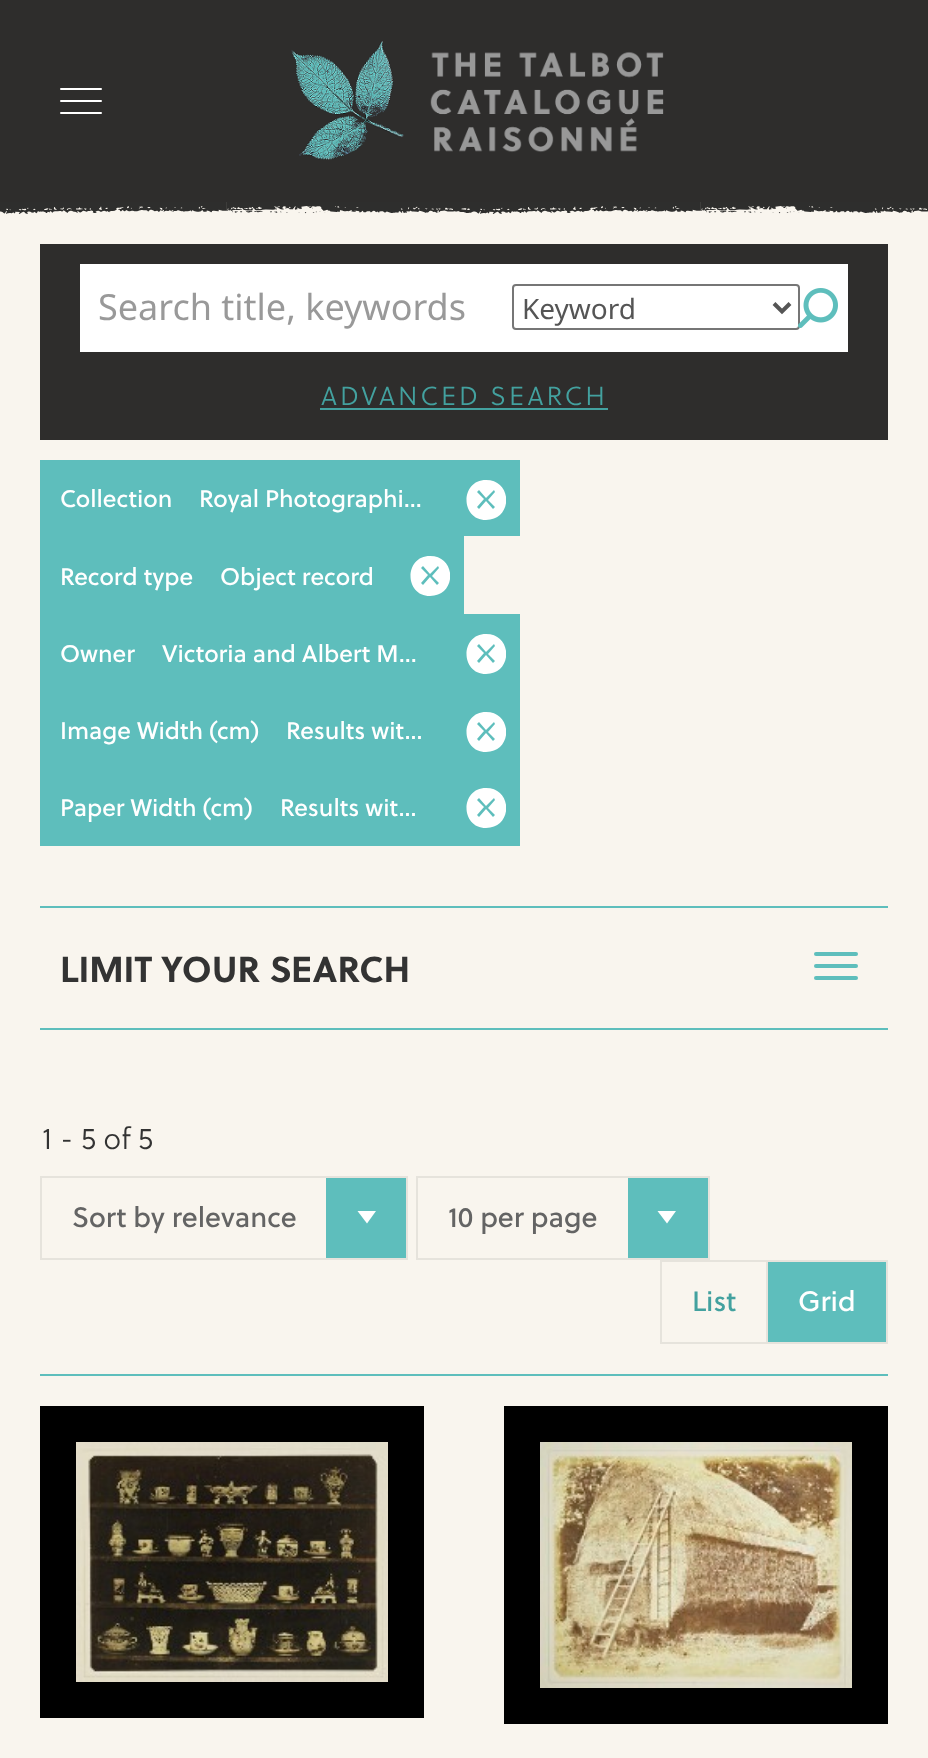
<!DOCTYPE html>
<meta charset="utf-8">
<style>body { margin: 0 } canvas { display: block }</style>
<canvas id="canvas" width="928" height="1758"></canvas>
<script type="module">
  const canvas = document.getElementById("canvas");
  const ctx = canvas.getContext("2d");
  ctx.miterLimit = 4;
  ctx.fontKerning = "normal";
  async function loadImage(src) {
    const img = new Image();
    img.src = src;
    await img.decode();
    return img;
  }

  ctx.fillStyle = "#f9f5ee";
  ctx.fillRect(0, 0, 928, 1758);
  ctx.fillStyle = "#2e2d2c";
  ctx.fillRect(0, 0, 928, 202);
  ctx.fillStyle = "#ffffff";
  ctx.beginPath();
  ctx.roundRect(60, 88, 42, 2, 1);
  ctx.fill();
  ctx.beginPath();
  ctx.roundRect(60, 100, 42, 2, 1);
  ctx.fill();
  ctx.beginPath();
  ctx.roundRect(60, 112, 42, 2, 1);
  ctx.fill();
  ctx.drawImage(await loadImage("img1.png"), 291, 41, 373, 119);
  ctx.drawImage(await loadImage("img2.png"), 0, 202, 928, 12);
  ctx.fillStyle = "#2e2d2c";
  ctx.fillRect(40, 244, 848, 196);
  ctx.fillStyle = "#ffffff";
  ctx.fillRect(80, 264, 768, 88);
  ctx.font = "36px Noto Sans";
  ctx.fillStyle = "#999999";
  ctx.fillText("Search title, keywords", 98, 320);
  ctx.beginPath();
  ctx.roundRect(513, 285, 286, 44, 3);
  ctx.strokeStyle = "#767676";
  ctx.lineWidth = 2;
  ctx.stroke();
  ctx.beginPath();
  ctx.moveTo(774, 303.5);
  ctx.lineTo(782, 311.5);
  ctx.lineTo(790, 303.5);
  ctx.strokeStyle = "#555555";
  ctx.lineWidth = 4;
  ctx.stroke();
  ctx.font = "28px Noto Sans";
  ctx.fillStyle = "#555555";
  ctx.fillText("Keyword", 522, 319);
  ctx.drawImage(await loadImage("img3.png"), 798, 288, 40, 40);
  ctx.letterSpacing = "3px";
  ctx.font = "300 26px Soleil";
  ctx.fillStyle = "#43a19f";
  ctx.fillText("ADVANCED SEARCH", 321, 405);
  ctx.fillRect(320, 408, 288, 2);
  ctx.fillStyle = "#5ebebc";
  ctx.fillRect(40, 460, 480, 76);
  ctx.letterSpacing = "0px";
  ctx.font = "24px Soleil";
  ctx.fillStyle = "#ffffff";
  ctx.fillText("Collection", 60, 507);
  ctx.fillText("Royal Photographi…", 199, 507);
  ctx.save();
  ctx.beginPath();
  ctx.rect(466, 480, 40, 40);
  ctx.clip();
  ctx.beginPath();
  ctx.moveTo(486, 480);
  ctx.bezierCurveTo(460, 480, 460, 520, 486, 520);
  ctx.bezierCurveTo(513, 520, 513, 480, 486, 480);
  ctx.closePath();
  ctx.moveTo(495, 507);
  ctx.lineTo(493, 509);
  ctx.lineTo(486, 501);
  ctx.lineTo(479, 509);
  ctx.lineTo(477, 507);
  ctx.lineTo(484, 499);
  ctx.lineTo(477, 492);
  ctx.lineTo(479, 490);
  ctx.lineTo(486, 498);
  ctx.lineTo(494, 490);
  ctx.lineTo(495, 492);
  ctx.lineTo(488, 500);
  ctx.closePath();
  ctx.fill();
  ctx.restore();
  ctx.fillStyle = "#5ebebc";
  ctx.fillRect(40, 536, 424, 78);
  ctx.fillStyle = "#ffffff";
  ctx.fillText("Record type", 60, 585);
  ctx.fillText("Object record", 220, 585);
  ctx.save();
  ctx.beginPath();
  ctx.rect(410, 556, 40, 40);
  ctx.clip();
  ctx.beginPath();
  ctx.moveTo(430, 556);
  ctx.bezierCurveTo(404, 556, 404, 596, 430, 596);
  ctx.bezierCurveTo(457, 596, 457, 556, 430, 556);
  ctx.closePath();
  ctx.moveTo(439, 583);
  ctx.lineTo(437, 585);
  ctx.lineTo(430, 577);
  ctx.lineTo(423, 585);
  ctx.lineTo(421, 583);
  ctx.lineTo(428, 575);
  ctx.lineTo(421, 568);
  ctx.lineTo(423, 566);
  ctx.lineTo(430, 574);
  ctx.lineTo(438, 566);
  ctx.lineTo(439, 568);
  ctx.lineTo(432, 576);
  ctx.closePath();
  ctx.fill();
  ctx.restore();
  ctx.fillStyle = "#5ebebc";
  ctx.fillRect(40, 614, 480, 232);
  ctx.fillStyle = "#ffffff";
  ctx.fillText("Owner", 60, 662);
  ctx.fillText("Victoria and Albert M…", 162, 662);
  ctx.save();
  ctx.beginPath();
  ctx.rect(466, 634, 40, 40);
  ctx.clip();
  ctx.beginPath();
  ctx.moveTo(486, 634);
  ctx.bezierCurveTo(460, 634, 460, 674, 486, 674);
  ctx.bezierCurveTo(513, 674, 513, 634, 486, 634);
  ctx.closePath();
  ctx.moveTo(495, 661);
  ctx.lineTo(493, 663);
  ctx.lineTo(486, 655);
  ctx.lineTo(479, 663);
  ctx.lineTo(477, 661);
  ctx.lineTo(484, 653);
  ctx.lineTo(477, 646);
  ctx.lineTo(479, 644);
  ctx.lineTo(486, 652);
  ctx.lineTo(494, 644);
  ctx.lineTo(495, 646);
  ctx.lineTo(488, 654);
  ctx.closePath();
  ctx.fill();
  ctx.restore();
  ctx.fillText("Image Width (cm)", 60, 739);
  ctx.fillText("Results wit…", 286, 739);
  ctx.save();
  ctx.beginPath();
  ctx.rect(466, 712, 40, 40);
  ctx.clip();
  ctx.beginPath();
  ctx.moveTo(486, 712);
  ctx.bezierCurveTo(460, 712, 460, 752, 486, 752);
  ctx.bezierCurveTo(513, 752, 513, 712, 486, 712);
  ctx.closePath();
  ctx.moveTo(495, 739);
  ctx.lineTo(493, 741);
  ctx.lineTo(486, 733);
  ctx.lineTo(479, 741);
  ctx.lineTo(477, 739);
  ctx.lineTo(484, 731);
  ctx.lineTo(477, 724);
  ctx.lineTo(479, 722);
  ctx.lineTo(486, 730);
  ctx.lineTo(494, 722);
  ctx.lineTo(495, 724);
  ctx.lineTo(488, 732);
  ctx.closePath();
  ctx.fill();
  ctx.restore();
  ctx.fillText("Paper Width (cm)", 60, 816);
  ctx.fillText("Results wit…", 280, 816);
  ctx.save();
  ctx.beginPath();
  ctx.rect(466, 788, 40, 40);
  ctx.clip();
  ctx.beginPath();
  ctx.moveTo(486, 788);
  ctx.bezierCurveTo(460, 788, 460, 828, 486, 828);
  ctx.bezierCurveTo(513, 828, 513, 788, 486, 788);
  ctx.closePath();
  ctx.moveTo(495, 815);
  ctx.lineTo(493, 817);
  ctx.lineTo(486, 809);
  ctx.lineTo(479, 817);
  ctx.lineTo(477, 815);
  ctx.lineTo(484, 807);
  ctx.lineTo(477, 800);
  ctx.lineTo(479, 798);
  ctx.lineTo(486, 806);
  ctx.lineTo(494, 798);
  ctx.lineTo(495, 800);
  ctx.lineTo(488, 808);
  ctx.closePath();
  ctx.fill();
  ctx.restore();
  ctx.fillStyle = "#5ebebc";
  ctx.fillRect(40, 906, 848, 2);
  ctx.fillRect(40, 1028, 848, 2);
  ctx.font = "bold 36px Soleil";
  ctx.fillStyle = "#333333";
  ctx.fillText("LIMIT YOUR SEARCH", 60, 982);
  ctx.fillStyle = "#5ebebc";
  ctx.beginPath();
  ctx.roundRect(814, 952, 44, 4, 2);
  ctx.fill();
  ctx.beginPath();
  ctx.roundRect(814, 964, 44, 4, 2);
  ctx.fill();
  ctx.beginPath();
  ctx.roundRect(814, 976, 44, 4, 2);
  ctx.fill();
  ctx.font = "300 30px Soleil";
  ctx.fillStyle = "#333333";
  ctx.fillText("1 - 5 of 5", 42, 1149);
  ctx.fillStyle = "#5ebebc";
  ctx.fillRect(40, 1374, 848, 2);
  ctx.strokeStyle = "#e6e3dc";
  ctx.lineWidth = 2;
  ctx.strokeRect(41, 1177, 366, 82);
  ctx.font = "28px Soleil";
  ctx.fillStyle = "#646464";
  ctx.fillText("Sort by relevance", 72, 1227);
  ctx.fillStyle = "#5ebebc";
  ctx.fillRect(326, 1178, 80, 80);
  ctx.fillStyle = "#ffffff";
  ctx.beginPath();
  ctx.moveTo(376, 1211);
  ctx.lineTo(367, 1223.5);
  ctx.lineTo(357.5, 1211);
  ctx.fill();
  ctx.strokeRect(417, 1177, 292, 82);
  ctx.fillStyle = "#646464";
  ctx.fillText("10 per page", 448, 1227);
  ctx.fillStyle = "#5ebebc";
  ctx.fillRect(628, 1178, 80, 80);
  ctx.fillStyle = "#ffffff";
  ctx.beginPath();
  ctx.moveTo(676, 1211);
  ctx.lineTo(667, 1223.5);
  ctx.lineTo(657.5, 1211);
  ctx.fill();
  ctx.strokeRect(661, 1261, 106, 82);
  ctx.fillStyle = "#43a19f";
  ctx.fillText("List", 692, 1311);
  ctx.fillStyle = "#5ebebc";
  ctx.beginPath();
  ctx.rect(767, 1261, 120, 82);
  ctx.fill();
  ctx.stroke();
  ctx.fillStyle = "#ffffff";
  ctx.fillText("Grid", 798, 1311);
  ctx.fillStyle = "#000000";
  ctx.fillRect(40, 1406, 384, 312);
  ctx.drawImage(await loadImage("img4.png"), 76, 1442, 312, 240);
  ctx.fillRect(504, 1406, 384, 318);
  ctx.drawImage(await loadImage("img5.png"), 540, 1442, 312, 246);
</script>
